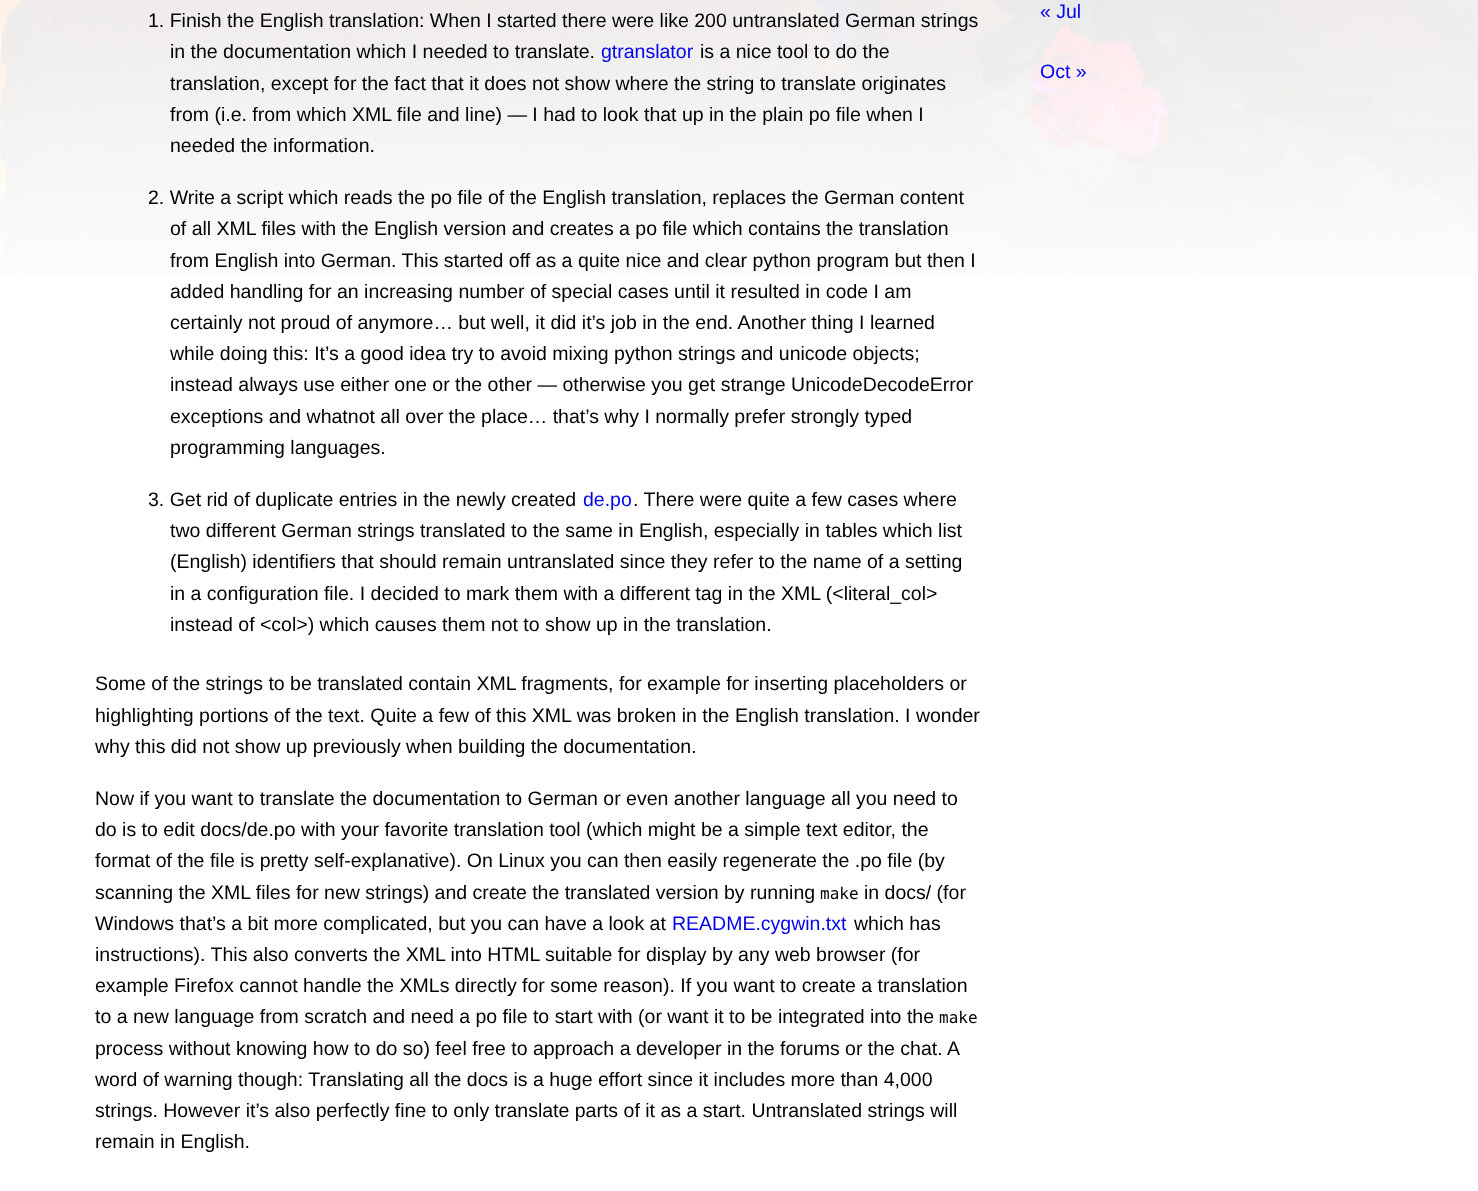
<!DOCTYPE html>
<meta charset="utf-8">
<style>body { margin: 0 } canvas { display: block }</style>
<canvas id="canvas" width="1478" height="1191"></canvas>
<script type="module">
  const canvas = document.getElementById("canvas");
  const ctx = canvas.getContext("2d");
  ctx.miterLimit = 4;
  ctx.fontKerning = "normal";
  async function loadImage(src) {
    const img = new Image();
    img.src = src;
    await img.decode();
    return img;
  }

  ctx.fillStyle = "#ffffff";
  ctx.fillRect(0, 0, 1478, 1191);
  ctx.drawImage(await loadImage("img1.png"), 0, 0, 1478, 277);
  ctx.font = "19.5px Liberation Sans";
  ctx.fillStyle = "#000000";
  ctx.fillText("1. Finish the English translation: When I started there were like 200 untranslated German strings", 148, 27);
  ctx.fillText("in the documentation which I needed to translate.", 170, 58);
  ctx.fillStyle = "#0000ee";
  ctx.fillText("gtranslator", 601, 58);
  ctx.fillStyle = "#000000";
  ctx.fillText("is a nice tool to do the", 700, 58);
  ctx.fillText("translation, except for the fact that it does not show where the string to translate originates", 170, 90);
  ctx.fillText("from (i.e. from which XML file and line) — I had to look that up in the plain po file when I", 170, 121);
  ctx.fillText("needed the information.", 170, 152);
  ctx.fillText("2. Write a script which reads the po file of the English translation, replaces the German content", 148, 204);
  ctx.fillText("of all XML files with the English version and creates a po file which contains the translation", 170, 235);
  ctx.fillText("from English into German. This started off as a quite nice and clear python program but then I", 170, 267);
  ctx.fillText("added handling for an increasing number of special cases until it resulted in code I am", 170, 298);
  ctx.fillText("certainly not proud of anymore… but well, it did it’s job in the end. Another thing I learned", 170, 329);
  ctx.fillText("while doing this: It’s a good idea try to avoid mixing python strings and unicode objects;", 170, 360);
  ctx.fillText("instead always use either one or the other — otherwise you get strange UnicodeDecodeError", 170, 391);
  ctx.fillText("exceptions and whatnot all over the place… that’s why I normally prefer strongly typed", 170, 423);
  ctx.fillText("programming languages.", 170, 454);
  ctx.fillText("3. Get rid of duplicate entries in the newly created", 148, 506);
  ctx.fillStyle = "#0000ee";
  ctx.fillText("de.po", 583, 506);
  ctx.fillStyle = "#000000";
  ctx.fillText(". There were quite a few cases where", 633, 506);
  ctx.fillText("two different German strings translated to the same in English, especially in tables which list", 170, 537);
  ctx.fillText("(English) identifiers that should remain untranslated since they refer to the name of a setting", 170, 568);
  ctx.fillText("in a configuration file. I decided to mark them with a different tag in the XML (<literal_col>", 170, 600);
  ctx.fillText("instead of <col>) which causes them not to show up in the translation.", 170, 631);
  ctx.fillText("Some of the strings to be translated contain XML fragments, for example for inserting placeholders or", 95, 690);
  ctx.fillText("highlighting portions of the text. Quite a few of this XML was broken in the English translation. I wonder", 95, 722);
  ctx.fillText("why this did not show up previously when building the documentation.", 95, 753);
  ctx.fillText("Now if you want to translate the documentation to German or even another language all you need to", 95, 805);
  ctx.fillText("do is to edit docs/de.po with your favorite translation tool (which might be a simple text editor, the", 95, 836);
  ctx.fillText("format of the file is pretty self-explanative). On Linux you can then easily regenerate the .po file (by", 95, 867);
  ctx.fillText("scanning the XML files for new strings) and create the translated version by running", 95, 899);
  ctx.font = "16px DejaVu Sans Mono";
  ctx.fillText("make", 820, 899);
  ctx.font = "19.5px Liberation Sans";
  ctx.fillText("in docs/ (for", 864, 899);
  ctx.fillText("Windows that’s a bit more complicated, but you can have a look at", 95, 930);
  ctx.fillStyle = "#0000ee";
  ctx.fillText("README.cygwin.txt", 672, 930);
  ctx.fillStyle = "#000000";
  ctx.fillText("which has", 854, 930);
  ctx.fillText("instructions). This also converts the XML into HTML suitable for display by any web browser (for", 95, 961);
  ctx.fillText("example Firefox cannot handle the XMLs directly for some reason). If you want to create a translation", 95, 992);
  ctx.fillText("to a new language from scratch and need a po file to start with (or want it to be integrated into the", 95, 1023);
  ctx.font = "16px DejaVu Sans Mono";
  ctx.fillText("make", 939, 1023);
  ctx.font = "19.5px Liberation Sans";
  ctx.fillText("process without knowing how to do so) feel free to approach a developer in the forums or the chat. A", 95, 1055);
  ctx.fillText("word of warning though: Translating all the docs is a huge effort since it includes more than 4,000", 95, 1086);
  ctx.fillText("strings. However it’s also perfectly fine to only translate parts of it as a start. Untranslated strings will", 95, 1117);
  ctx.fillText("remain in English.", 95, 1148);
  ctx.fillStyle = "#0000ee";
  ctx.fillText("« Jul", 1040, 18);
  ctx.fillText("Oct »", 1040, 78);
</script>
